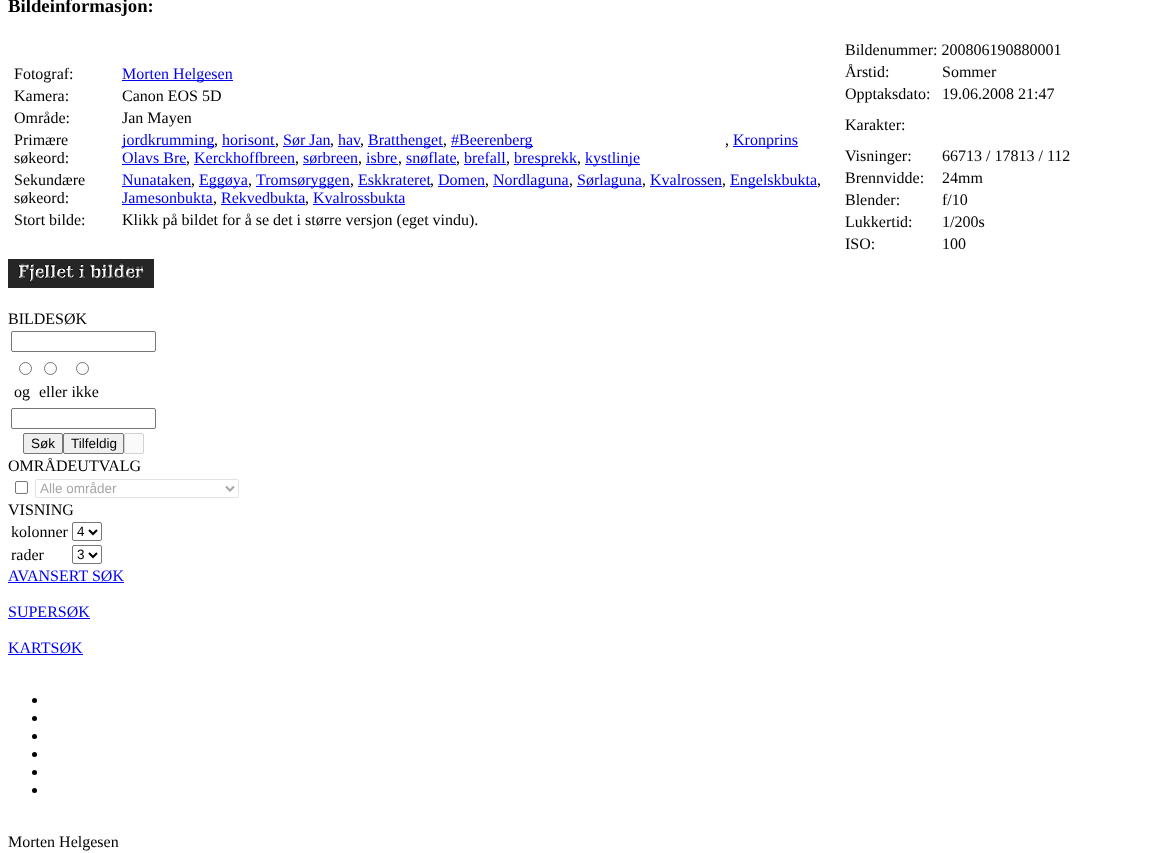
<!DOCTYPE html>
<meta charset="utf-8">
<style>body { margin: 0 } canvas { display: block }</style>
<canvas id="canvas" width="1166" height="853"></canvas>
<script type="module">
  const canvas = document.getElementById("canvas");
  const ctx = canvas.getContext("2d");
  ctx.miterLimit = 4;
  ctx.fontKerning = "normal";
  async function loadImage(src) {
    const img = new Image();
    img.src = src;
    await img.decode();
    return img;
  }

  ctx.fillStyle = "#ffffff";
  ctx.fillRect(0, 0, 1166, 853);
  ctx.font = "bold 18.75px Liberation Serif";
  ctx.fillStyle = "#000000";
  ctx.fillText("Bildeinformasjon:", 8, 12);
  ctx.font = "16px Liberation Serif";
  ctx.fillText("Fotograf:", 14, 79);
  ctx.fillStyle = "#0000ee";
  ctx.fillRect(122, 80, 111, 1);
  ctx.fillText("Morten Helgesen", 122, 79);
  ctx.fillStyle = "#000000";
  ctx.fillText("Kamera:", 14, 101);
  ctx.fillText("Canon EOS 5D", 122, 101);
  ctx.fillText("Område:", 14, 123);
  ctx.fillText("Jan Mayen", 122, 123);
  ctx.fillText("Primære", 14, 145);
  ctx.fillText("søkeord:", 14, 163);
  ctx.fillStyle = "#0000ee";
  ctx.fillRect(122, 146, 92, 1);
  ctx.fillText("jordkrumming", 122, 145);
  ctx.fillStyle = "#000000";
  ctx.fillText(",", 214, 145);
  ctx.fillStyle = "#0000ee";
  ctx.fillText("horisont", 222, 145);
  ctx.fillRect(222, 146, 53, 1);
  ctx.fillStyle = "#000000";
  ctx.fillText(",", 275, 145);
  ctx.fillStyle = "#0000ee";
  ctx.fillText("Sør Jan", 283, 145);
  ctx.fillRect(283, 146, 47, 1);
  ctx.fillStyle = "#000000";
  ctx.fillText(",", 330, 145);
  ctx.fillStyle = "#0000ee";
  ctx.fillText("hav", 338, 145);
  ctx.fillRect(338, 146, 22, 1);
  ctx.fillStyle = "#000000";
  ctx.fillText(",", 360, 145);
  ctx.fillStyle = "#0000ee";
  ctx.fillRect(368, 146, 75, 1);
  ctx.fillText("Bratthenget", 368, 145);
  ctx.fillStyle = "#000000";
  ctx.fillText(",", 443, 145);
  ctx.fillStyle = "#0000ee";
  ctx.fillRect(451, 146, 82, 1);
  ctx.fillText("#Beerenberg", 451, 145);
  ctx.fillStyle = "#000000";
  ctx.fillText(",", 725, 145);
  ctx.fillStyle = "#0000ee";
  ctx.fillRect(733, 146, 65, 1);
  ctx.fillText("Kronprins", 733, 145);
  ctx.fillText("Olavs Bre", 122, 163);
  ctx.fillRect(122, 164, 64, 1);
  ctx.fillStyle = "#000000";
  ctx.fillText(",", 186, 163);
  ctx.fillStyle = "#0000ee";
  ctx.fillText("Kerckhoffbreen", 194, 163);
  ctx.fillRect(194, 164, 101, 1);
  ctx.fillStyle = "#000000";
  ctx.fillText(",", 295, 163);
  ctx.fillStyle = "#0000ee";
  ctx.fillText("sørbreen", 303, 163);
  ctx.fillRect(303, 164, 55, 1);
  ctx.fillStyle = "#000000";
  ctx.fillText(",", 358, 163);
  ctx.fillStyle = "#0000ee";
  ctx.fillText("isbre", 366, 163);
  ctx.fillRect(366, 164, 32, 1);
  ctx.fillStyle = "#000000";
  ctx.fillText(",", 398, 163);
  ctx.fillStyle = "#0000ee";
  ctx.fillText("snøflate", 406, 163);
  ctx.fillRect(406, 164, 50, 1);
  ctx.fillStyle = "#000000";
  ctx.fillText(",", 456, 163);
  ctx.fillStyle = "#0000ee";
  ctx.fillText("brefall", 464, 163);
  ctx.fillRect(464, 164, 42, 1);
  ctx.fillStyle = "#000000";
  ctx.fillText(",", 506, 163);
  ctx.fillStyle = "#0000ee";
  ctx.fillRect(514, 164, 63, 1);
  ctx.fillText("bresprekk", 514, 163);
  ctx.fillStyle = "#000000";
  ctx.fillText(",", 577, 163);
  ctx.fillStyle = "#0000ee";
  ctx.fillRect(585, 164, 55, 1);
  ctx.fillText("kystlinje", 585, 163);
  ctx.fillStyle = "#000000";
  ctx.fillText("Sekundære", 14, 185);
  ctx.fillText("søkeord:", 14, 203);
  ctx.fillStyle = "#0000ee";
  ctx.fillText("Nunataken", 122, 185);
  ctx.fillRect(122, 186, 69, 1);
  ctx.fillStyle = "#000000";
  ctx.fillText(",", 191, 185);
  ctx.fillStyle = "#0000ee";
  ctx.fillRect(199, 186, 49, 1);
  ctx.fillText("Eggøya", 199, 185);
  ctx.fillStyle = "#000000";
  ctx.fillText(",", 248, 185);
  ctx.fillStyle = "#0000ee";
  ctx.fillRect(256, 186, 94, 1);
  ctx.fillText("Tromsøryggen", 256, 185);
  ctx.fillStyle = "#000000";
  ctx.fillText(",", 350, 185);
  ctx.fillStyle = "#0000ee";
  ctx.fillText("Eskkrateret", 358, 185);
  ctx.fillRect(358, 186, 72, 1);
  ctx.fillStyle = "#000000";
  ctx.fillText(",", 430, 185);
  ctx.fillStyle = "#0000ee";
  ctx.fillText("Domen", 438, 185);
  ctx.fillRect(438, 186, 47, 1);
  ctx.fillStyle = "#000000";
  ctx.fillText(",", 485, 185);
  ctx.fillStyle = "#0000ee";
  ctx.fillRect(493, 186, 76, 1);
  ctx.fillText("Nordlaguna", 493, 185);
  ctx.fillStyle = "#000000";
  ctx.fillText(",", 569, 185);
  ctx.fillStyle = "#0000ee";
  ctx.fillRect(577, 186, 65, 1);
  ctx.fillText("Sørlaguna", 577, 185);
  ctx.fillStyle = "#000000";
  ctx.fillText(",", 642, 185);
  ctx.fillStyle = "#0000ee";
  ctx.fillText("Kvalrossen", 650, 185);
  ctx.fillRect(650, 186, 72, 1);
  ctx.fillStyle = "#000000";
  ctx.fillText(",", 722, 185);
  ctx.fillStyle = "#0000ee";
  ctx.fillRect(730, 186, 87, 1);
  ctx.fillText("Engelskbukta", 730, 185);
  ctx.fillStyle = "#000000";
  ctx.fillText(",", 817, 185);
  ctx.fillStyle = "#0000ee";
  ctx.fillText("Jamesonbukta", 122, 203);
  ctx.fillRect(122, 204, 91, 1);
  ctx.fillStyle = "#000000";
  ctx.fillText(",", 213, 203);
  ctx.fillStyle = "#0000ee";
  ctx.fillText("Rekvedbukta", 221, 203);
  ctx.fillRect(221, 204, 84, 1);
  ctx.fillStyle = "#000000";
  ctx.fillText(",", 305, 203);
  ctx.fillStyle = "#0000ee";
  ctx.fillText("Kvalrossbukta", 313, 203);
  ctx.fillRect(313, 204, 92, 1);
  ctx.fillStyle = "#000000";
  ctx.fillText("Stort bilde:", 14, 225);
  ctx.fillText("Klikk på bildet for å se det i større versjon (eget vindu).", 122, 225);
  ctx.fillText("Bildenummer: 200806190880001", 845, 55);
  ctx.fillText("Årstid:", 845, 77);
  ctx.fillText("Sommer", 942, 77);
  ctx.fillText("Opptaksdato:", 845, 99);
  ctx.fillText("19.06.2008 21:47", 942, 99);
  ctx.fillText("Karakter:", 845, 130);
  ctx.fillText("Visninger:", 845, 161);
  ctx.fillText("66713 / 17813 / 112", 942, 161);
  ctx.fillText("Brennvidde:", 845, 183);
  ctx.fillText("24mm", 942, 183);
  ctx.fillText("Blender:", 845, 205);
  ctx.fillText("f/10", 942, 205);
  ctx.fillText("Lukkertid:", 845, 227);
  ctx.fillText("1/200s", 942, 227);
  ctx.fillText("ISO:", 845, 249);
  ctx.fillText("100", 942, 249);
  ctx.drawImage(await loadImage("img1.png"), 8, 259, 146, 29);
  ctx.fillText("BILDESØK", 8, 324);
  ctx.beginPath();
  ctx.roundRect(11.5, 331.5, 144, 20, 1.5);
  ctx.strokeStyle = "#767676";
  ctx.stroke();
  ctx.beginPath();
  ctx.arc(25.5, 368.5, 6, 0, Math.PI * 2);
  ctx.stroke();
  ctx.beginPath();
  ctx.arc(50.5, 368.5, 6, 0, Math.PI * 2);
  ctx.stroke();
  ctx.beginPath();
  ctx.arc(82.5, 368.5, 6, 0, Math.PI * 2);
  ctx.stroke();
  ctx.fillText("og", 14, 397);
  ctx.fillText("eller ikke", 39, 397);
  ctx.beginPath();
  ctx.roundRect(11.5, 408.5, 144, 20, 1.5);
  ctx.stroke();
  ctx.fillStyle = "#efefef";
  ctx.beginPath();
  ctx.roundRect(23.5, 433.5, 39, 20, 1.5);
  ctx.fill();
  ctx.stroke();
  ctx.font = "13.5px Liberation Sans";
  ctx.fillStyle = "#000000";
  ctx.fillText("Søk", 31, 448);
  ctx.fillStyle = "#efefef";
  ctx.beginPath();
  ctx.roundRect(63.5, 433.5, 60, 20, 1.5);
  ctx.fill();
  ctx.stroke();
  ctx.fillStyle = "#000000";
  ctx.fillText("Tilfeldig", 71, 448);
  ctx.fillStyle = "#fafafa";
  ctx.beginPath();
  ctx.roundRect(124.5, 433.5, 19, 20, 1.5);
  ctx.fill();
  ctx.strokeStyle = "#d2d2d2";
  ctx.stroke();
  ctx.font = "16px Liberation Serif";
  ctx.fillStyle = "#000000";
  ctx.fillText("OMRÅDEUTVALG", 8, 471);
  ctx.beginPath();
  ctx.roundRect(15.5, 481.5, 12, 12, 1.5);
  ctx.strokeStyle = "#767676";
  ctx.stroke();
  ctx.beginPath();
  ctx.roundRect(35.5, 479.5, 203, 18, 1.5);
  ctx.strokeStyle = "#e2e2e2";
  ctx.stroke();
  ctx.beginPath();
  ctx.moveTo(226, 486.5);
  ctx.lineTo(230, 490.5);
  ctx.lineTo(234, 486.5);
  ctx.strokeStyle = "#a6a6a6";
  ctx.lineWidth = 2;
  ctx.stroke();
  ctx.font = "13.5px Liberation Sans";
  ctx.fillStyle = "#a6a6a6";
  ctx.fillText("Alle områder", 40, 493);
  ctx.font = "16px Liberation Serif";
  ctx.fillStyle = "#000000";
  ctx.fillText("VISNING", 8, 515);
  ctx.fillText("kolonner", 11, 537);
  ctx.beginPath();
  ctx.roundRect(72.5, 522.5, 29, 18, 1.5);
  ctx.strokeStyle = "#767676";
  ctx.lineWidth = 1;
  ctx.stroke();
  ctx.beginPath();
  ctx.moveTo(89, 530);
  ctx.lineTo(93, 534);
  ctx.lineTo(97, 530);
  ctx.strokeStyle = "#000000";
  ctx.lineWidth = 2;
  ctx.stroke();
  ctx.font = "13.5px Liberation Sans";
  ctx.fillText("4", 77, 536);
  ctx.font = "16px Liberation Serif";
  ctx.fillText("rader", 11, 560);
  ctx.beginPath();
  ctx.roundRect(72.5, 545.5, 29, 18, 1.5);
  ctx.strokeStyle = "#767676";
  ctx.lineWidth = 1;
  ctx.stroke();
  ctx.beginPath();
  ctx.moveTo(89, 553);
  ctx.lineTo(93, 557);
  ctx.lineTo(97, 553);
  ctx.strokeStyle = "#000000";
  ctx.lineWidth = 2;
  ctx.stroke();
  ctx.font = "13.5px Liberation Sans";
  ctx.fillText("3", 77, 559);
  ctx.font = "16px Liberation Serif";
  ctx.fillStyle = "#0000ee";
  ctx.fillText("AVANSERT SØK", 8, 581);
  ctx.fillRect(8, 582, 116, 1);
  ctx.fillText("SUPERSØK", 8, 617);
  ctx.fillRect(8, 618, 82, 1);
  ctx.fillText("KARTSØK", 8, 653);
  ctx.fillRect(8, 654, 75, 1);
  ctx.fillStyle = "#000000";
  ctx.beginPath();
  ctx.arc(34.5, 700.5, 2.5, 0, Math.PI * 2);
  ctx.fill();
  ctx.beginPath();
  ctx.arc(34.5, 718.5, 2.5, 0, Math.PI * 2);
  ctx.fill();
  ctx.beginPath();
  ctx.arc(34.5, 736.5, 2.5, 0, Math.PI * 2);
  ctx.fill();
  ctx.beginPath();
  ctx.arc(34.5, 754.5, 2.5, 0, Math.PI * 2);
  ctx.fill();
  ctx.beginPath();
  ctx.arc(34.5, 772.5, 2.5, 0, Math.PI * 2);
  ctx.fill();
  ctx.beginPath();
  ctx.arc(34.5, 790.5, 2.5, 0, Math.PI * 2);
  ctx.fill();
  ctx.fillText("Morten Helgesen", 8, 847);
</script>
